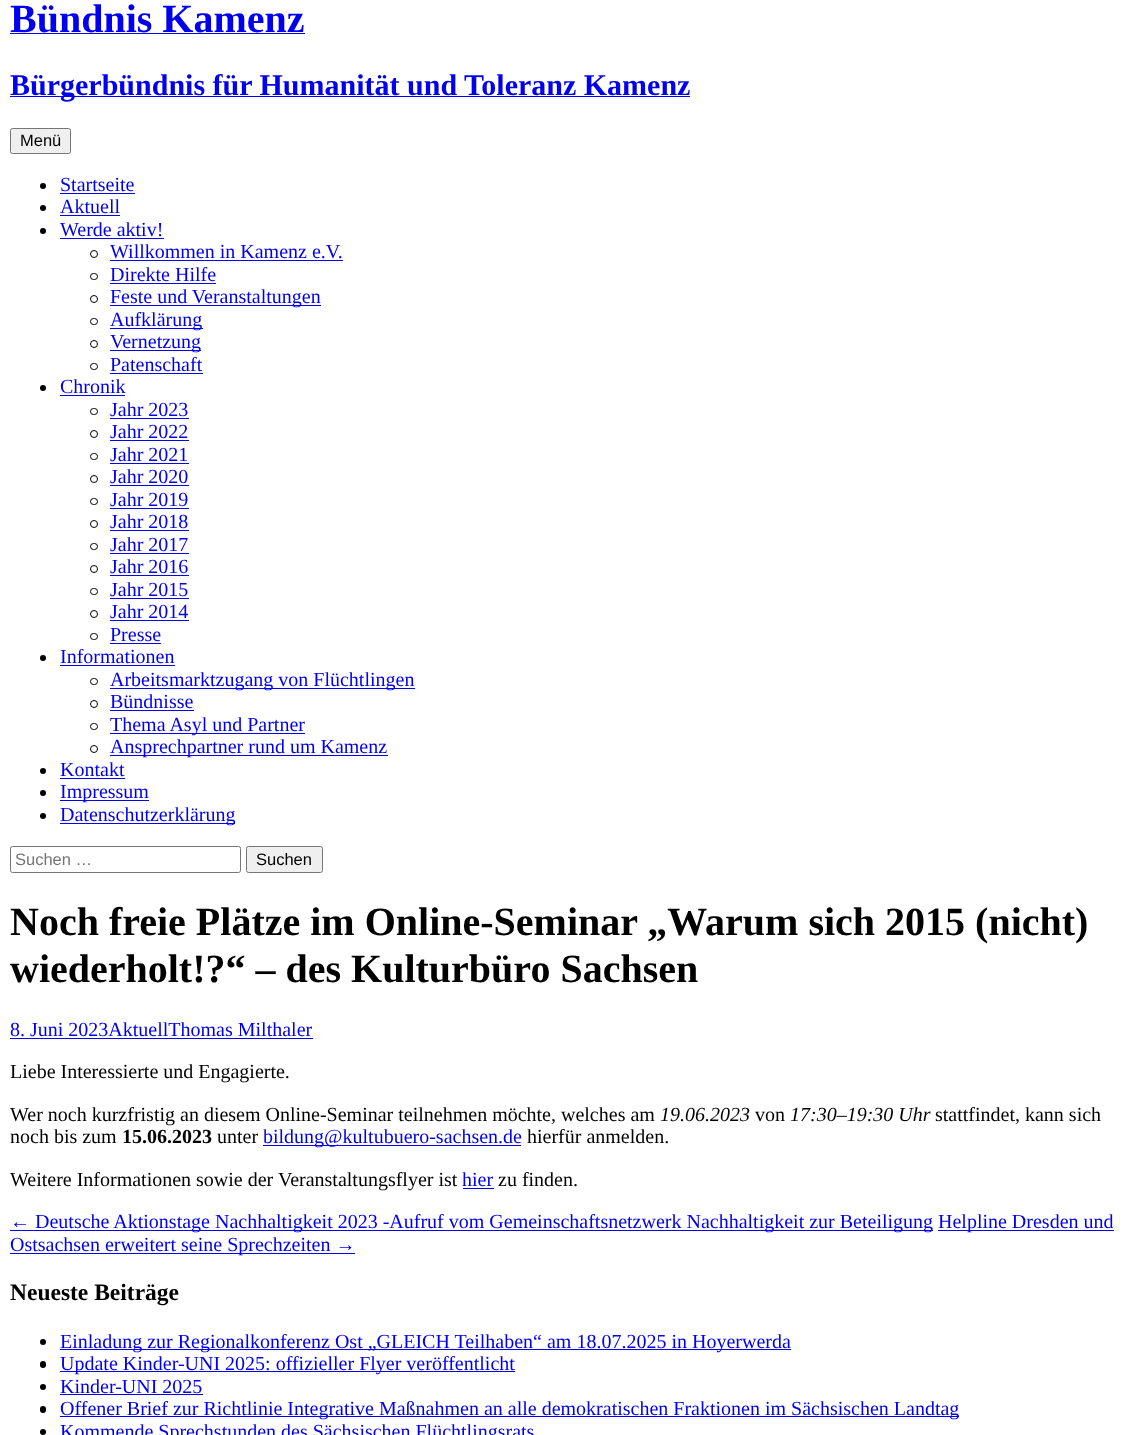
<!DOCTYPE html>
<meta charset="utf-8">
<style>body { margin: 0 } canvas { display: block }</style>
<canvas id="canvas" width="1146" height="1435"></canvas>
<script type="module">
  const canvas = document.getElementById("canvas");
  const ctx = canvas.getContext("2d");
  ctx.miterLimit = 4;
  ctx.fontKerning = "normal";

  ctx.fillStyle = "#ffffff";
  ctx.fillRect(0, 0, 1146, 1435);
  ctx.font = "bold 40px Liberation Serif";
  ctx.fillStyle = "#0000ee";
  ctx.fillText("Bündnis Kamenz", 10, 32);
  ctx.fillRect(10, 33, 295, 1);
  ctx.fillRect(10, 96, 680, 1);
  ctx.font = "bold 30px Liberation Serif";
  ctx.fillText("Bürgerbündnis für Humanität und Toleranz Kamenz", 10, 95);
  ctx.fillStyle = "#efefef";
  ctx.beginPath();
  ctx.roundRect(10.5, 128.5, 60, 25, 2);
  ctx.fill();
  ctx.strokeStyle = "#767676";
  ctx.stroke();
  ctx.font = "16.5px Liberation Sans";
  ctx.fillStyle = "#000000";
  ctx.fillText("Menü", 20, 146);
  ctx.beginPath();
  ctx.arc(43, 186, 3, 0, Math.PI * 2);
  ctx.fill();
  ctx.font = "20px Liberation Serif";
  ctx.fillStyle = "#0000ee";
  ctx.fillText("Startseite", 60, 191);
  ctx.fillRect(60, 193, 75, 1);
  ctx.fillStyle = "#000000";
  ctx.beginPath();
  ctx.arc(43, 208, 3, 0, Math.PI * 2);
  ctx.fill();
  ctx.fillStyle = "#0000ee";
  ctx.fillText("Aktuell", 60, 213);
  ctx.fillRect(60, 215, 60, 1);
  ctx.fillStyle = "#000000";
  ctx.beginPath();
  ctx.arc(43, 231, 3, 0, Math.PI * 2);
  ctx.fill();
  ctx.fillStyle = "#0000ee";
  ctx.fillText("Werde aktiv!", 60, 236);
  ctx.fillRect(60, 238, 104, 1);
  ctx.beginPath();
  ctx.arc(94, 254, 3.5, 0, Math.PI * 2);
  ctx.strokeStyle = "#000000";
  ctx.stroke();
  ctx.fillText("Willkommen in Kamenz e.V.", 110, 258);
  ctx.fillRect(110, 260, 233, 1);
  ctx.beginPath();
  ctx.roundRect(90.5, 273.5, 7, 6, 3);
  ctx.stroke();
  ctx.fillText("Direkte Hilfe", 110, 281);
  ctx.fillRect(110, 283, 106, 1);
  ctx.beginPath();
  ctx.arc(94, 299, 3.5, 0, Math.PI * 2);
  ctx.stroke();
  ctx.fillRect(110, 305, 211, 1);
  ctx.fillText("Feste und Veranstaltungen", 110, 303);
  ctx.beginPath();
  ctx.roundRect(90.5, 318.5, 7, 6, 3);
  ctx.stroke();
  ctx.fillRect(110, 328, 93, 1);
  ctx.fillText("Aufklärung", 110, 326);
  ctx.beginPath();
  ctx.arc(94, 344, 3.5, 0, Math.PI * 2);
  ctx.stroke();
  ctx.fillRect(110, 350, 91, 1);
  ctx.fillText("Vernetzung", 110, 348);
  ctx.beginPath();
  ctx.roundRect(90.5, 363.5, 7, 6, 3);
  ctx.stroke();
  ctx.fillText("Patenschaft", 110, 371);
  ctx.fillRect(110, 373, 93, 1);
  ctx.fillStyle = "#000000";
  ctx.beginPath();
  ctx.arc(43, 388, 3, 0, Math.PI * 2);
  ctx.fill();
  ctx.fillStyle = "#0000ee";
  ctx.fillText("Chronik", 60, 393);
  ctx.fillRect(60, 395, 65, 1);
  ctx.beginPath();
  ctx.roundRect(90.5, 408.5, 7, 6, 3);
  ctx.stroke();
  ctx.fillText("Jahr 2023", 110, 416);
  ctx.fillRect(110, 418, 79, 1);
  ctx.beginPath();
  ctx.arc(94, 434, 3.5, 0, Math.PI * 2);
  ctx.stroke();
  ctx.fillText("Jahr 2022", 110, 438);
  ctx.fillRect(110, 440, 79, 1);
  ctx.beginPath();
  ctx.roundRect(90.5, 453.5, 7, 6, 3);
  ctx.stroke();
  ctx.fillText("Jahr 2021", 110, 461);
  ctx.fillRect(110, 463, 79, 1);
  ctx.beginPath();
  ctx.arc(94, 479, 3.5, 0, Math.PI * 2);
  ctx.stroke();
  ctx.fillText("Jahr 2020", 110, 483);
  ctx.fillRect(110, 485, 79, 1);
  ctx.beginPath();
  ctx.roundRect(90.5, 498.5, 7, 6, 3);
  ctx.stroke();
  ctx.fillText("Jahr 2019", 110, 506);
  ctx.fillRect(110, 508, 79, 1);
  ctx.beginPath();
  ctx.arc(94, 524, 3.5, 0, Math.PI * 2);
  ctx.stroke();
  ctx.fillText("Jahr 2018", 110, 528);
  ctx.fillRect(110, 530, 79, 1);
  ctx.beginPath();
  ctx.roundRect(90.5, 543.5, 7, 6, 3);
  ctx.stroke();
  ctx.fillText("Jahr 2017", 110, 551);
  ctx.fillRect(110, 553, 79, 1);
  ctx.beginPath();
  ctx.arc(94, 569, 3.5, 0, Math.PI * 2);
  ctx.stroke();
  ctx.fillText("Jahr 2016", 110, 573);
  ctx.fillRect(110, 575, 79, 1);
  ctx.beginPath();
  ctx.roundRect(90.5, 588.5, 7, 6, 3);
  ctx.stroke();
  ctx.fillText("Jahr 2015", 110, 596);
  ctx.fillRect(110, 598, 79, 1);
  ctx.beginPath();
  ctx.arc(94, 614, 3.5, 0, Math.PI * 2);
  ctx.stroke();
  ctx.fillText("Jahr 2014", 110, 618);
  ctx.fillRect(110, 620, 79, 1);
  ctx.beginPath();
  ctx.roundRect(90.5, 633.5, 7, 6, 3);
  ctx.stroke();
  ctx.fillText("Presse", 110, 641);
  ctx.fillRect(110, 643, 51, 1);
  ctx.fillStyle = "#000000";
  ctx.beginPath();
  ctx.arc(43, 658, 3, 0, Math.PI * 2);
  ctx.fill();
  ctx.fillStyle = "#0000ee";
  ctx.fillText("Informationen", 60, 663);
  ctx.fillRect(60, 665, 115, 1);
  ctx.beginPath();
  ctx.roundRect(90.5, 678.5, 7, 6, 3);
  ctx.stroke();
  ctx.fillRect(110, 688, 305, 1);
  ctx.fillText("Arbeitsmarktzugang von Flüchtlingen", 110, 686);
  ctx.beginPath();
  ctx.arc(94, 704, 3.5, 0, Math.PI * 2);
  ctx.stroke();
  ctx.fillText("Bündnisse", 110, 708);
  ctx.fillRect(110, 710, 84, 1);
  ctx.beginPath();
  ctx.roundRect(90.5, 723.5, 7, 6, 3);
  ctx.stroke();
  ctx.fillRect(110, 733, 195, 1);
  ctx.fillText("Thema Asyl und Partner", 110, 731);
  ctx.beginPath();
  ctx.arc(94, 749, 3.5, 0, Math.PI * 2);
  ctx.stroke();
  ctx.fillRect(110, 755, 278, 1);
  ctx.fillText("Ansprechpartner rund um Kamenz", 110, 753);
  ctx.fillStyle = "#000000";
  ctx.beginPath();
  ctx.arc(43, 771, 3, 0, Math.PI * 2);
  ctx.fill();
  ctx.fillStyle = "#0000ee";
  ctx.fillText("Kontakt", 60, 776);
  ctx.fillRect(60, 778, 65, 1);
  ctx.fillStyle = "#000000";
  ctx.beginPath();
  ctx.arc(43, 793, 3, 0, Math.PI * 2);
  ctx.fill();
  ctx.fillStyle = "#0000ee";
  ctx.fillRect(60, 800, 89, 1);
  ctx.fillText("Impressum", 60, 798);
  ctx.fillStyle = "#000000";
  ctx.beginPath();
  ctx.arc(43, 816, 3, 0, Math.PI * 2);
  ctx.fill();
  ctx.fillStyle = "#0000ee";
  ctx.fillRect(60, 823, 175, 1);
  ctx.fillText("Datenschutzerklärung", 60, 821);
  ctx.beginPath();
  ctx.roundRect(10.5, 846.5, 230, 26, 2);
  ctx.strokeStyle = "#767676";
  ctx.stroke();
  ctx.font = "16.5px Liberation Sans";
  ctx.fillStyle = "#757575";
  ctx.fillText("Suchen …", 15, 865);
  ctx.fillStyle = "#efefef";
  ctx.beginPath();
  ctx.roundRect(246.5, 846.5, 76, 26, 2);
  ctx.fill();
  ctx.stroke();
  ctx.fillStyle = "#000000";
  ctx.fillText("Suchen", 256, 865);
  ctx.font = "bold 40px Liberation Serif";
  ctx.fillText("Noch freie Plätze im Online-Seminar „Warum sich 2015 (nicht)", 10, 935);
  ctx.fillText("wiederholt!?“ – des Kulturbüro Sachsen", 10, 982);
  ctx.font = "20px Liberation Serif";
  ctx.fillStyle = "#0000ee";
  ctx.fillText("8. Juni 2023AktuellThomas Milthaler", 10, 1036);
  ctx.fillRect(10, 1038, 303, 1);
  ctx.fillStyle = "#000000";
  ctx.fillText("Liebe Interessierte und Engagierte.", 10, 1078);
  ctx.fillText("Wer noch kurzfristig an diesem Online-Seminar teilnehmen möchte, welches am", 10, 1121);
  ctx.font = "italic 20px Liberation Serif";
  ctx.fillText("19.06.2023", 660, 1121);
  ctx.font = "20px Liberation Serif";
  ctx.fillText("von", 755, 1121);
  ctx.font = "italic 20px Liberation Serif";
  ctx.fillText("17:30–19:30 Uhr", 790, 1121);
  ctx.font = "20px Liberation Serif";
  ctx.fillText("stattfindet, kann sich", 935, 1121);
  ctx.fillText("noch bis zum", 10, 1143);
  ctx.font = "bold 20px Liberation Serif";
  ctx.fillText("15.06.2023", 122, 1143);
  ctx.font = "20px Liberation Serif";
  ctx.fillText("unter", 217, 1143);
  ctx.fillStyle = "#0000ee";
  ctx.fillRect(263, 1145, 258, 1);
  ctx.fillText("bildung@kultubuero-sachsen.de", 263, 1143);
  ctx.fillStyle = "#000000";
  ctx.fillText("hierfür anmelden.", 527, 1143);
  ctx.fillText("Weitere Informationen sowie der Veranstaltungsflyer ist", 10, 1186);
  ctx.fillStyle = "#0000ee";
  ctx.fillText("hier", 462, 1186);
  ctx.fillRect(463, 1188, 31, 1);
  ctx.fillStyle = "#000000";
  ctx.fillText("zu finden.", 498, 1186);
  ctx.fillStyle = "#0000ee";
  ctx.fillRect(10, 1230, 923, 1);
  ctx.fillText("← Deutsche Aktionstage Nachhaltigkeit 2023 -Aufruf vom Gemeinschaftsnetzwerk Nachhaltigkeit zur Beteiligung", 10, 1228);
  ctx.fillRect(938, 1230, 176, 1);
  ctx.fillText("Helpline Dresden und", 938, 1228);
  ctx.fillRect(10, 1253, 345, 1);
  ctx.fillText("Ostsachsen erweitert seine Sprechzeiten →", 10, 1251);
  ctx.font = "bold 23.5px Liberation Serif";
  ctx.fillStyle = "#000000";
  ctx.fillText("Neueste Beiträge", 10, 1300);
  ctx.beginPath();
  ctx.arc(43, 1342, 3, 0, Math.PI * 2);
  ctx.fill();
  ctx.fillStyle = "#0000ee";
  ctx.fillRect(60, 1349, 731, 1);
  ctx.font = "20px Liberation Serif";
  ctx.fillText("Einladung zur Regionalkonferenz Ost „GLEICH Teilhaben“ am 18.07.2025 in Hoyerwerda", 60, 1348);
  ctx.fillStyle = "#000000";
  ctx.beginPath();
  ctx.roundRect(40, 1361, 6, 7, 3);
  ctx.fill();
  ctx.fillStyle = "#0000ee";
  ctx.fillRect(60, 1371, 455, 1);
  ctx.fillText("Update Kinder-UNI 2025: offizieller Flyer veröffentlicht", 60, 1370);
  ctx.fillStyle = "#000000";
  ctx.beginPath();
  ctx.arc(43, 1387, 3, 0, Math.PI * 2);
  ctx.fill();
  ctx.fillStyle = "#0000ee";
  ctx.fillText("Kinder-UNI 2025", 60, 1393);
  ctx.fillRect(60, 1394, 143, 1);
  ctx.fillStyle = "#000000";
  ctx.beginPath();
  ctx.roundRect(40, 1406, 6, 7, 3);
  ctx.fill();
  ctx.fillStyle = "#0000ee";
  ctx.fillRect(60, 1416, 899, 1);
  ctx.fillText("Offener Brief zur Richtlinie Integrative Maßnahmen an alle demokratischen Fraktionen im Sächsischen Landtag", 60, 1415);
  ctx.fillStyle = "#000000";
  ctx.beginPath();
  ctx.arc(43, 1432, 3, 0, Math.PI * 2);
  ctx.fill();
  ctx.fillStyle = "#0000ee";
  ctx.fillText("Kommende Sprechstunden des Sächsischen Flüchtlingsrats", 60, 1438);
</script>
